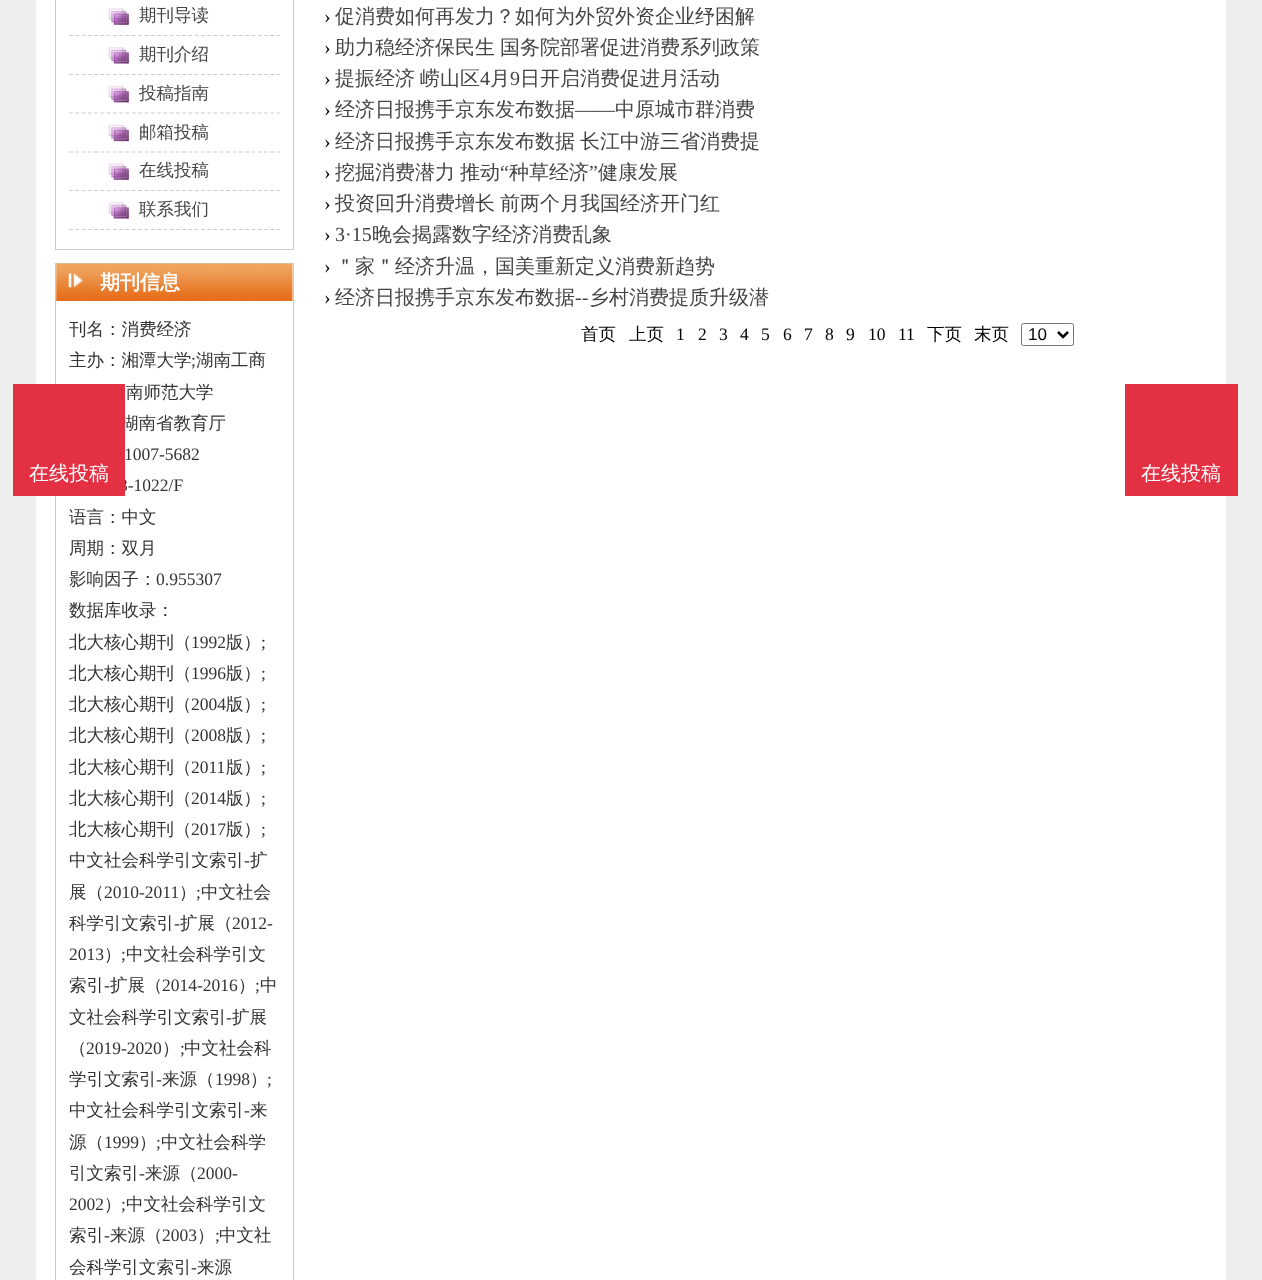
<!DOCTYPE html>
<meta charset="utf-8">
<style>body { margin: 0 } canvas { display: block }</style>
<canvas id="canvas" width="1262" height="1280"></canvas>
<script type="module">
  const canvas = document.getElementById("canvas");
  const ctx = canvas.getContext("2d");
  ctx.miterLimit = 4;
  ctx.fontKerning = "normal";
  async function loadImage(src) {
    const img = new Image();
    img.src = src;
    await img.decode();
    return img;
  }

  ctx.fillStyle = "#eeeeee";
  ctx.fillRect(0, 0, 1262, 1280);
  ctx.fillStyle = "#ffffff";
  ctx.fillRect(36, 0, 1190, 1280);
  ctx.strokeStyle = "#cccccc";
  ctx.strokeRect(55.5, -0.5, 238, 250);
  ctx.drawImage(await loadImage("img1.png"), 108, 8, 21, 17);
  ctx.beginPath();
  ctx.moveTo(69, 35.5);
  ctx.lineTo(280, 35.5);
  ctx.lineWidth = 1.2;
  ctx.setLineDash([3.75, 2.54]);
  ctx.stroke();
  ctx.font = "500 17.5px WenQuanYi Zen Hei";
  ctx.fillStyle = "#444444";
  ctx.fillText("期刊导读", 139, 21);
  ctx.drawImage(await loadImage("img2.png"), 108, 47, 21, 17);
  ctx.beginPath();
  ctx.moveTo(69, 74.5);
  ctx.lineTo(280, 74.5);
  ctx.stroke();
  ctx.fillText("期刊介绍", 139, 60);
  ctx.drawImage(await loadImage("img3.png"), 108, 86, 21, 17);
  ctx.beginPath();
  ctx.moveTo(69, 113);
  ctx.lineTo(280, 113);
  ctx.stroke();
  ctx.fillText("投稿指南", 139, 99);
  ctx.drawImage(await loadImage("img4.png"), 108, 124, 21, 18);
  ctx.beginPath();
  ctx.moveTo(69, 152);
  ctx.lineTo(280, 152);
  ctx.stroke();
  ctx.fillText("邮箱投稿", 139, 138);
  ctx.drawImage(await loadImage("img5.png"), 108, 163, 21, 17);
  ctx.beginPath();
  ctx.moveTo(69, 190.5);
  ctx.lineTo(280, 190.5);
  ctx.stroke();
  ctx.fillText("在线投稿", 139, 176);
  ctx.drawImage(await loadImage("img2.png"), 108, 202, 21, 17);
  ctx.beginPath();
  ctx.moveTo(69, 229.5);
  ctx.lineTo(280, 229.5);
  ctx.stroke();
  ctx.fillText("联系我们", 139, 215);
  ctx.lineWidth = 1;
  ctx.setLineDash([]);
  ctx.strokeRect(55.5, 263.5, 238, 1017);
  ctx.drawImage(await loadImage("img6.png"), 56, 263, 237, 38);
  ctx.font = "bold 20px WenQuanYi Zen Hei";
  ctx.fillStyle = "#ffffff";
  ctx.fillText("期刊信息", 100, 289);
  ctx.font = "500 17.5px WenQuanYi Zen Hei";
  ctx.fillStyle = "#333333";
  ctx.fillText("刊名：消费经济", 69, 335);
  ctx.fillText("主办：湘潭大学", 69, 366);
  ctx.font = "17.5px Liberation Serif";
  ctx.fillText(";", 191, 366);
  ctx.font = "500 17.5px WenQuanYi Zen Hei";
  ctx.fillText("湖南工商", 196, 366);
  ctx.fillText("南师范大学", 126, 398);
  ctx.fillText("湖南省教育厅", 121, 429);
  ctx.font = "17.5px Liberation Serif";
  ctx.fillText("1007-5682", 124, 460);
  ctx.fillText("3-1022/F", 119, 491);
  ctx.font = "500 17.5px WenQuanYi Zen Hei";
  ctx.fillText("语言：中文", 69, 523);
  ctx.fillText("周期：双月", 69, 554);
  ctx.fillText("影响因子：", 69, 585);
  ctx.font = "17.5px Liberation Serif";
  ctx.fillText("0.955307", 156, 585);
  ctx.font = "500 17.5px WenQuanYi Zen Hei";
  ctx.fillText("数据库收录：", 69, 616);
  ctx.fillText("北大核心期刊（", 69, 648);
  ctx.font = "17.5px Liberation Serif";
  ctx.fillText("1992", 191, 648);
  ctx.font = "500 17.5px WenQuanYi Zen Hei";
  ctx.fillText("版）", 226, 648);
  ctx.font = "17.5px Liberation Serif";
  ctx.fillText(";", 261, 648);
  ctx.font = "500 17.5px WenQuanYi Zen Hei";
  ctx.fillText("北大核心期刊（", 69, 679);
  ctx.font = "17.5px Liberation Serif";
  ctx.fillText("1996", 191, 679);
  ctx.font = "500 17.5px WenQuanYi Zen Hei";
  ctx.fillText("版）", 226, 679);
  ctx.font = "17.5px Liberation Serif";
  ctx.fillText(";", 261, 679);
  ctx.font = "500 17.5px WenQuanYi Zen Hei";
  ctx.fillText("北大核心期刊（", 69, 710);
  ctx.font = "17.5px Liberation Serif";
  ctx.fillText("2004", 191, 710);
  ctx.font = "500 17.5px WenQuanYi Zen Hei";
  ctx.fillText("版）", 226, 710);
  ctx.font = "17.5px Liberation Serif";
  ctx.fillText(";", 261, 710);
  ctx.font = "500 17.5px WenQuanYi Zen Hei";
  ctx.fillText("北大核心期刊（", 69, 741);
  ctx.font = "17.5px Liberation Serif";
  ctx.fillText("2008", 191, 741);
  ctx.font = "500 17.5px WenQuanYi Zen Hei";
  ctx.fillText("版）", 226, 741);
  ctx.font = "17.5px Liberation Serif";
  ctx.fillText(";", 261, 741);
  ctx.font = "500 17.5px WenQuanYi Zen Hei";
  ctx.fillText("北大核心期刊（", 69, 773);
  ctx.font = "17.5px Liberation Serif";
  ctx.fillText("2011", 191, 773);
  ctx.font = "500 17.5px WenQuanYi Zen Hei";
  ctx.fillText("版）", 226, 773);
  ctx.font = "17.5px Liberation Serif";
  ctx.fillText(";", 261, 773);
  ctx.font = "500 17.5px WenQuanYi Zen Hei";
  ctx.fillText("北大核心期刊（", 69, 804);
  ctx.font = "17.5px Liberation Serif";
  ctx.fillText("2014", 191, 804);
  ctx.font = "500 17.5px WenQuanYi Zen Hei";
  ctx.fillText("版）", 226, 804);
  ctx.font = "17.5px Liberation Serif";
  ctx.fillText(";", 261, 804);
  ctx.font = "500 17.5px WenQuanYi Zen Hei";
  ctx.fillText("北大核心期刊（", 69, 835);
  ctx.font = "17.5px Liberation Serif";
  ctx.fillText("2017", 191, 835);
  ctx.font = "500 17.5px WenQuanYi Zen Hei";
  ctx.fillText("版）", 226, 835);
  ctx.font = "17.5px Liberation Serif";
  ctx.fillText(";", 261, 835);
  ctx.font = "500 17.5px WenQuanYi Zen Hei";
  ctx.fillText("中文社会科学引文索引", 69, 866);
  ctx.font = "17.5px Liberation Serif";
  ctx.fillText("-", 244, 866);
  ctx.font = "500 17.5px WenQuanYi Zen Hei";
  ctx.fillText("扩", 250, 866);
  ctx.fillText("展（", 69, 898);
  ctx.font = "17.5px Liberation Serif";
  ctx.fillText("2010-2011", 104, 898);
  ctx.font = "500 17.5px WenQuanYi Zen Hei";
  ctx.fillText("）", 179, 898);
  ctx.font = "17.5px Liberation Serif";
  ctx.fillText(";", 196, 898);
  ctx.font = "500 17.5px WenQuanYi Zen Hei";
  ctx.fillText("中文社会", 201, 898);
  ctx.fillText("科学引文索引", 69, 929);
  ctx.font = "17.5px Liberation Serif";
  ctx.fillText("-", 174, 929);
  ctx.font = "500 17.5px WenQuanYi Zen Hei";
  ctx.fillText("扩展（", 180, 929);
  ctx.font = "17.5px Liberation Serif";
  ctx.fillText("2012-", 232, 929);
  ctx.fillText("2013", 69, 960);
  ctx.font = "500 17.5px WenQuanYi Zen Hei";
  ctx.fillText("）", 104, 960);
  ctx.font = "17.5px Liberation Serif";
  ctx.fillText(";", 121, 960);
  ctx.font = "500 17.5px WenQuanYi Zen Hei";
  ctx.fillText("中文社会科学引文", 126, 960);
  ctx.fillText("索引", 69, 991);
  ctx.font = "17.5px Liberation Serif";
  ctx.fillText("-", 104, 991);
  ctx.font = "500 17.5px WenQuanYi Zen Hei";
  ctx.fillText("扩展（", 110, 991);
  ctx.font = "17.5px Liberation Serif";
  ctx.fillText("2014-2016", 162, 991);
  ctx.font = "500 17.5px WenQuanYi Zen Hei";
  ctx.fillText("）", 238, 991);
  ctx.font = "17.5px Liberation Serif";
  ctx.fillText(";", 255, 991);
  ctx.font = "500 17.5px WenQuanYi Zen Hei";
  ctx.fillText("中", 260, 991);
  ctx.fillText("文社会科学引文索引", 69, 1023);
  ctx.font = "17.5px Liberation Serif";
  ctx.fillText("-", 226, 1023);
  ctx.font = "500 17.5px WenQuanYi Zen Hei";
  ctx.fillText("扩展", 232, 1023);
  ctx.fillText("（", 69, 1054);
  ctx.font = "17.5px Liberation Serif";
  ctx.fillText("2019-2020", 86, 1054);
  ctx.font = "500 17.5px WenQuanYi Zen Hei";
  ctx.fillText("）", 162, 1054);
  ctx.font = "17.5px Liberation Serif";
  ctx.fillText(";", 180, 1054);
  ctx.font = "500 17.5px WenQuanYi Zen Hei";
  ctx.fillText("中文社会科", 184, 1054);
  ctx.fillText("学引文索引", 69, 1085);
  ctx.font = "17.5px Liberation Serif";
  ctx.fillText("-", 156, 1085);
  ctx.font = "500 17.5px WenQuanYi Zen Hei";
  ctx.fillText("来源（", 162, 1085);
  ctx.font = "17.5px Liberation Serif";
  ctx.fillText("1998", 215, 1085);
  ctx.font = "500 17.5px WenQuanYi Zen Hei";
  ctx.fillText("）", 250, 1085);
  ctx.font = "17.5px Liberation Serif";
  ctx.fillText(";", 267, 1085);
  ctx.font = "500 17.5px WenQuanYi Zen Hei";
  ctx.fillText("中文社会科学引文索引", 69, 1116);
  ctx.font = "17.5px Liberation Serif";
  ctx.fillText("-", 244, 1116);
  ctx.font = "500 17.5px WenQuanYi Zen Hei";
  ctx.fillText("来", 250, 1116);
  ctx.fillText("源（", 69, 1148);
  ctx.font = "17.5px Liberation Serif";
  ctx.fillText("1999", 104, 1148);
  ctx.font = "500 17.5px WenQuanYi Zen Hei";
  ctx.fillText("）", 139, 1148);
  ctx.font = "17.5px Liberation Serif";
  ctx.fillText(";", 156, 1148);
  ctx.font = "500 17.5px WenQuanYi Zen Hei";
  ctx.fillText("中文社会科学", 161, 1148);
  ctx.fillText("引文索引", 69, 1179);
  ctx.font = "17.5px Liberation Serif";
  ctx.fillText("-", 139, 1179);
  ctx.font = "500 17.5px WenQuanYi Zen Hei";
  ctx.fillText("来源（", 145, 1179);
  ctx.font = "17.5px Liberation Serif";
  ctx.fillText("2000-", 197, 1179);
  ctx.fillText("2002", 69, 1210);
  ctx.font = "500 17.5px WenQuanYi Zen Hei";
  ctx.fillText("）", 104, 1210);
  ctx.font = "17.5px Liberation Serif";
  ctx.fillText(";", 121, 1210);
  ctx.font = "500 17.5px WenQuanYi Zen Hei";
  ctx.fillText("中文社会科学引文", 126, 1210);
  ctx.fillText("索引", 69, 1241);
  ctx.font = "17.5px Liberation Serif";
  ctx.fillText("-", 104, 1241);
  ctx.font = "500 17.5px WenQuanYi Zen Hei";
  ctx.fillText("来源（", 110, 1241);
  ctx.font = "17.5px Liberation Serif";
  ctx.fillText("2003", 162, 1241);
  ctx.font = "500 17.5px WenQuanYi Zen Hei";
  ctx.fillText("）", 197, 1241);
  ctx.font = "17.5px Liberation Serif";
  ctx.fillText(";", 215, 1241);
  ctx.font = "500 17.5px WenQuanYi Zen Hei";
  ctx.fillText("中文社", 219, 1241);
  ctx.fillText("会科学引文索引", 69, 1273);
  ctx.font = "17.5px Liberation Serif";
  ctx.fillText("-", 191, 1273);
  ctx.font = "500 17.5px WenQuanYi Zen Hei";
  ctx.fillText("来源", 197, 1273);
  ctx.font = "20px Liberation Serif";
  ctx.fillStyle = "#000000";
  ctx.fillText("›", 324, 23);
  ctx.font = "500 20px WenQuanYi Zen Hei";
  ctx.fillStyle = "#444444";
  ctx.fillText("促消费如何再发力？如何为外贸外资企业纾困解", 335, 23);
  ctx.font = "20px Liberation Serif";
  ctx.fillStyle = "#000000";
  ctx.fillText("›", 324, 54);
  ctx.wordSpacing = "-1px";
  ctx.font = "500 20px WenQuanYi Zen Hei";
  ctx.fillStyle = "#444444";
  ctx.fillText("助力稳经济保民生 国务院部署促进消费系列政策", 335, 54);
  ctx.wordSpacing = "0px";
  ctx.font = "20px Liberation Serif";
  ctx.fillStyle = "#000000";
  ctx.fillText("›", 324, 85);
  ctx.wordSpacing = "-1px";
  ctx.font = "500 20px WenQuanYi Zen Hei";
  ctx.fillStyle = "#444444";
  ctx.fillText("提振经济 崂山区", 335, 85);
  ctx.wordSpacing = "0px";
  ctx.font = "20px Liberation Serif";
  ctx.fillText("4", 480, 85);
  ctx.font = "500 20px WenQuanYi Zen Hei";
  ctx.fillText("月", 490, 85);
  ctx.font = "20px Liberation Serif";
  ctx.fillText("9", 510, 85);
  ctx.font = "500 20px WenQuanYi Zen Hei";
  ctx.fillText("日开启消费促进月活动", 520, 85);
  ctx.font = "20px Liberation Serif";
  ctx.fillStyle = "#000000";
  ctx.fillText("›", 324, 116);
  ctx.font = "500 20px WenQuanYi Zen Hei";
  ctx.fillStyle = "#444444";
  ctx.fillText("经济日报携手京东发布数据", 335, 116);
  ctx.font = "20px Liberation Serif";
  ctx.fillText("——", 575, 116);
  ctx.font = "500 20px WenQuanYi Zen Hei";
  ctx.fillText("中原城市群消费", 615, 116);
  ctx.font = "20px Liberation Serif";
  ctx.fillStyle = "#000000";
  ctx.fillText("›", 324, 148);
  ctx.wordSpacing = "-1px";
  ctx.font = "500 20px WenQuanYi Zen Hei";
  ctx.fillStyle = "#444444";
  ctx.fillText("经济日报携手京东发布数据 长江中游三省消费提", 335, 148);
  ctx.fillText("挖掘消费潜力 推动", 335, 179);
  ctx.wordSpacing = "0px";
  ctx.font = "20px Liberation Serif";
  ctx.fillText("“", 500, 179);
  ctx.font = "500 20px WenQuanYi Zen Hei";
  ctx.fillText("种草经济", 509, 179);
  ctx.font = "20px Liberation Serif";
  ctx.fillText("”", 589, 179);
  ctx.font = "500 20px WenQuanYi Zen Hei";
  ctx.fillText("健康发展", 598, 179);
  ctx.font = "20px Liberation Serif";
  ctx.fillStyle = "#000000";
  ctx.fillText("›", 324, 179);
  ctx.fillText("›", 324, 210);
  ctx.wordSpacing = "-1px";
  ctx.font = "500 20px WenQuanYi Zen Hei";
  ctx.fillStyle = "#444444";
  ctx.fillText("投资回升消费增长 前两个月我国经济开门红", 335, 210);
  ctx.wordSpacing = "0px";
  ctx.font = "20px Liberation Serif";
  ctx.fillStyle = "#000000";
  ctx.fillText("›", 324, 241);
  ctx.fillStyle = "#444444";
  ctx.fillText("3·15", 335, 241);
  ctx.font = "500 20px WenQuanYi Zen Hei";
  ctx.fillText("晚会揭露数字经济消费乱象", 372, 241);
  ctx.font = "20px Liberation Serif";
  ctx.fillStyle = "#000000";
  ctx.fillText("›", 324, 273);
  ctx.font = "500 20px WenQuanYi Zen Hei";
  ctx.fillStyle = "#444444";
  ctx.fillText("＂家＂经济升温，国美重新定义消费新趋势", 335, 273);
  ctx.font = "20px Liberation Serif";
  ctx.fillStyle = "#000000";
  ctx.fillText("›", 324, 304);
  ctx.font = "500 20px WenQuanYi Zen Hei";
  ctx.fillStyle = "#444444";
  ctx.fillText("经济日报携手京东发布数据", 335, 304);
  ctx.font = "20px Liberation Serif";
  ctx.fillText("--", 575, 304);
  ctx.font = "500 20px WenQuanYi Zen Hei";
  ctx.fillText("乡村消费提质升级潜", 589, 304);
  ctx.font = "500 17.5px WenQuanYi Zen Hei";
  ctx.fillStyle = "#000000";
  ctx.fillText("首页", 581, 340);
  ctx.fillText("上页", 629, 340);
  ctx.font = "17.5px Liberation Serif";
  ctx.fillText("1", 676, 340);
  ctx.fillText("2", 698, 340);
  ctx.fillText("3", 719, 340);
  ctx.fillText("4", 740, 340);
  ctx.fillText("5", 761, 340);
  ctx.fillText("6", 783, 340);
  ctx.fillText("7", 804, 340);
  ctx.fillText("8", 825, 340);
  ctx.fillText("9", 846, 340);
  ctx.fillText("10", 868, 340);
  ctx.fillText("11", 898, 340);
  ctx.font = "500 17.5px WenQuanYi Zen Hei";
  ctx.fillText("下页", 927, 340);
  ctx.fillText("末页", 974, 340);
  ctx.beginPath();
  ctx.roundRect(1021.5, 323.5, 52, 22, 2);
  ctx.strokeStyle = "#767676";
  ctx.stroke();
  ctx.beginPath();
  ctx.moveTo(1058, 332);
  ctx.lineTo(1063, 337);
  ctx.lineTo(1068, 332);
  ctx.strokeStyle = "#000000";
  ctx.lineWidth = 2.5;
  ctx.stroke();
  ctx.font = "17px Liberation Sans";
  ctx.fillText("10", 1028, 340);
  ctx.fillStyle = "#e33043";
  ctx.fillRect(13, 384, 112, 112);
  ctx.font = "500 20px WenQuanYi Zen Hei";
  ctx.fillStyle = "#ffffff";
  ctx.fillText("在线投稿", 29, 480);
  ctx.fillStyle = "#e33043";
  ctx.fillRect(1125, 384, 113, 112);
  ctx.fillStyle = "#ffffff";
  ctx.fillText("在线投稿", 1141, 480);
</script>
